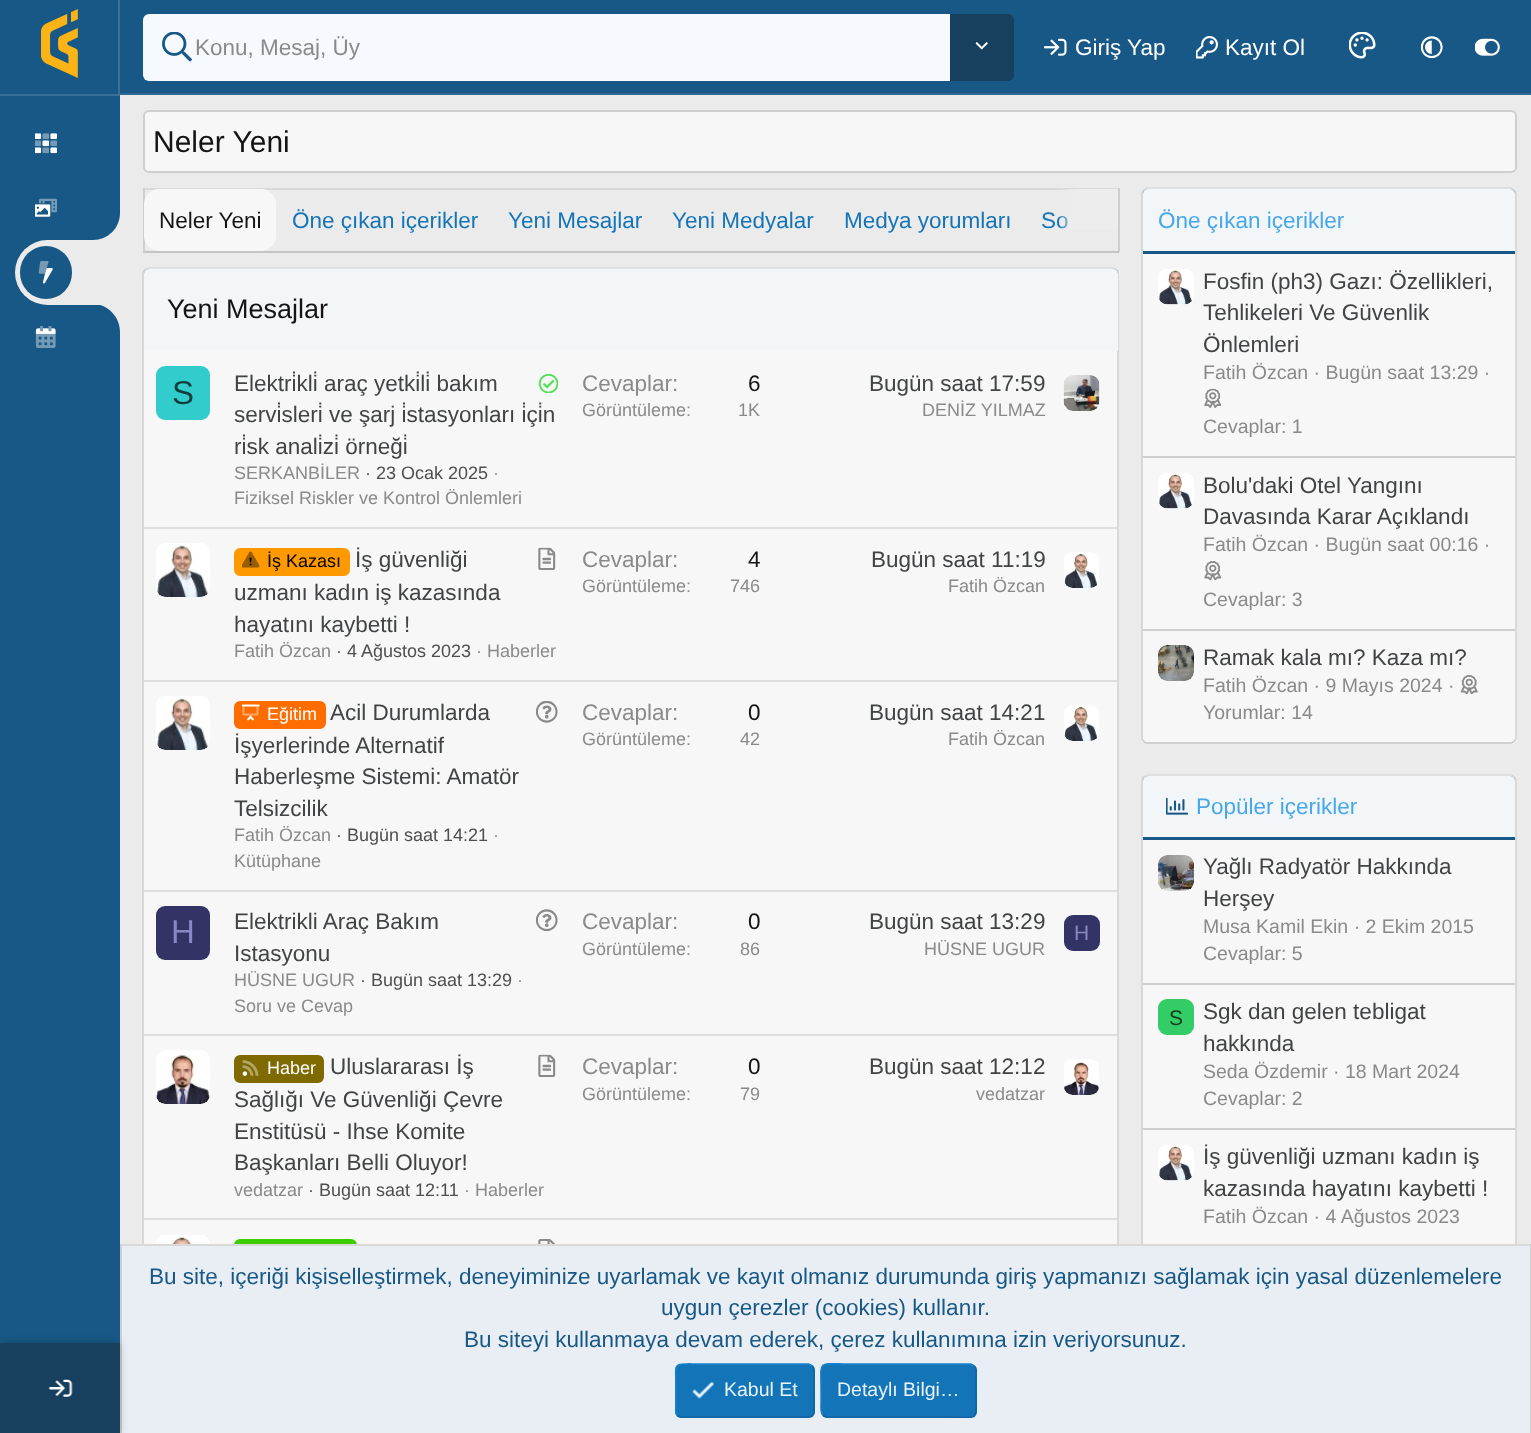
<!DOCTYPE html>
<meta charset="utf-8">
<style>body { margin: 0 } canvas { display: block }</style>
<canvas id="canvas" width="1531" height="1433"></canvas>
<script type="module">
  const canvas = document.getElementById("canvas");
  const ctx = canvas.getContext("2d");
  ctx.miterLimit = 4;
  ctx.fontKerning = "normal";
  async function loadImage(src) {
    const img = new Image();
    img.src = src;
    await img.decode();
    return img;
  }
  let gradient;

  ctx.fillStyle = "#ebebeb";
  ctx.fillRect(0, 0, 1531, 1433);
  ctx.fillStyle = "#185886";
  ctx.fillRect(0, 0, 120, 1343);
  ctx.fillStyle = "#3b7198";
  ctx.beginPath();
  ctx.moveTo(120, 0);
  ctx.lineTo(120, 96);
  ctx.lineTo(118, 94);
  ctx.lineTo(118, 0);
  ctx.closePath();
  ctx.fill();
  ctx.fillStyle = "rgba(255, 255, 255, 0.15)";
  ctx.beginPath();
  ctx.moveTo(120, 96);
  ctx.lineTo(0, 96);
  ctx.lineTo(0, 94);
  ctx.lineTo(118, 94);
  ctx.closePath();
  ctx.fill();
  ctx.drawImage(await loadImage("img1.png"), 41, 9, 37, 69);
  ctx.drawImage(await loadImage("img2.png"), 35, 133, 22, 21);
  ctx.drawImage(await loadImage("img3.png"), 35, 198, 22, 19);
  ctx.fillStyle = "#ebebeb";
  ctx.beginPath();
  ctx.roundRect(15, 240, 105, 65, [32.5, 0, 0, 32.5]);
  ctx.fill();
  ctx.save();
  ctx.beginPath();
  ctx.rect(0, 0, 120, 1344);
  ctx.clip();
  ctx.beginPath();
  ctx.moveTo(78, 240);
  ctx.lineTo(78, 255);
  ctx.lineTo(108, 255);
  ctx.bezierCurveTo(123, 255, 135, 243, 135, 228);
  ctx.lineTo(135, 180);
  ctx.lineTo(120, 180);
  ctx.lineTo(120, 213);
  ctx.bezierCurveTo(120, 228, 108, 240, 93, 240);
  ctx.closePath();
  ctx.fill();
  ctx.restore();
  ctx.fillStyle = "#185886";
  ctx.beginPath();
  ctx.roundRect(20, 246, 52, 53, 26);
  ctx.fill();
  ctx.drawImage(await loadImage("img4.png"), 38, 261, 15, 23);
  ctx.save();
  ctx.beginPath();
  ctx.rect(0, 0, 120, 1344);
  ctx.clip();
  ctx.fillStyle = "#ebebeb";
  ctx.beginPath();
  ctx.moveTo(78, 290);
  ctx.lineTo(78, 304);
  ctx.lineTo(93, 304);
  ctx.bezierCurveTo(108, 304, 120, 317, 120, 332);
  ctx.lineTo(120, 365);
  ctx.lineTo(135, 365);
  ctx.lineTo(135, 317);
  ctx.bezierCurveTo(135, 302, 123, 290, 108, 290);
  ctx.closePath();
  ctx.fill();
  ctx.restore();
  ctx.drawImage(await loadImage("img5.png"), 35, 326, 21, 22);
  ctx.fillStyle = "#f7f7f7";
  ctx.beginPath();
  ctx.roundRect(143, 267, 976, 1131, 6);
  ctx.fill();
  ctx.beginPath();
  ctx.moveTo(145, 269.5);
  ctx.bezierCurveTo(146, 268.5, 147, 268, 148.5, 268);
  ctx.lineTo(1113, 268);
  ctx.bezierCurveTo(1114.5, 268, 1115.5, 268.5, 1116.5, 269.5);
  ctx.strokeStyle = "#d9d9d9";
  ctx.lineWidth = 1.5;
  ctx.stroke();
  ctx.beginPath();
  ctx.moveTo(1116.5, 269.5);
  ctx.bezierCurveTo(1117.5, 270.5, 1118, 271.5, 1118, 273);
  ctx.lineTo(1118, 1392);
  ctx.bezierCurveTo(1118, 1393.5, 1117.5, 1394.5, 1116.5, 1395.5);
  ctx.strokeStyle = "#cfcfcf";
  ctx.stroke();
  ctx.beginPath();
  ctx.moveTo(145, 1395.5);
  ctx.bezierCurveTo(144, 1394.5, 143, 1393.5, 143, 1392);
  ctx.lineTo(143, 273);
  ctx.bezierCurveTo(143, 271.5, 144, 270.5, 145, 269.5);
  ctx.stroke();
  ctx.fillStyle = "#3dce00";
  ctx.beginPath();
  ctx.roundRect(235, 1240, 121, 27, 5);
  ctx.fill();
  ctx.strokeStyle = "#3dce00";
  ctx.lineWidth = 2;
  ctx.stroke();
  ctx.fillStyle = "#f7f7f7";
  ctx.beginPath();
  ctx.roundRect(1142, 774, 375, 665, 6);
  ctx.fill();
  ctx.beginPath();
  ctx.moveTo(1144, 776.5);
  ctx.bezierCurveTo(1145, 775.5, 1146, 775, 1147.5, 775);
  ctx.lineTo(1510.5, 775);
  ctx.bezierCurveTo(1512, 775, 1513, 775.5, 1514, 776.5);
  ctx.strokeStyle = "#d9d9d9";
  ctx.lineWidth = 1.5;
  ctx.stroke();
  ctx.beginPath();
  ctx.moveTo(1514, 776.5);
  ctx.bezierCurveTo(1515, 777.5, 1516, 778.5, 1516, 780);
  ctx.lineTo(1516, 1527);
  ctx.bezierCurveTo(1516, 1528.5, 1515, 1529.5, 1514, 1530.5);
  ctx.strokeStyle = "#cfcfcf";
  ctx.stroke();
  ctx.beginPath();
  ctx.moveTo(1144, 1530.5);
  ctx.bezierCurveTo(1143, 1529.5, 1142, 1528.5, 1142, 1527);
  ctx.lineTo(1142, 780);
  ctx.bezierCurveTo(1142, 778.5, 1143, 777.5, 1144, 776.5);
  ctx.stroke();
  ctx.fillStyle = "#e8eef3";
  ctx.fillRect(122, 1246, 1408, 187);
  ctx.fillStyle = "#d9d9d9";
  ctx.fillRect(120, 1244, 1411, 2);
  ctx.fillStyle = "#cfcfcf";
  ctx.fillRect(120, 1244, 2, 189);
  ctx.fillStyle = "rgba(0, 0, 0, 0.3)";
  ctx.filter = "blur(4px)";
  ctx.beginPath();
  ctx.rect(2, 1344, 117, 89);
  ctx.fill();
  ctx.filter = "none";
  ctx.fillStyle = "#17405e";
  ctx.fillRect(0, 1343, 120, 90);
  ctx.drawImage(await loadImage("img6.png"), 48, 1379, 25, 18);
  ctx.fillStyle = "#185886";
  ctx.fillRect(120, 0, 1411, 93);
  ctx.fillStyle = "#2f6992";
  ctx.fillRect(120, 93, 1411, 2);
  ctx.fillStyle = "#f6fafe";
  ctx.beginPath();
  ctx.roundRect(143, 14, 807, 67, [6, 0, 0, 6]);
  ctx.fill();
  ctx.drawImage(await loadImage("img7.png"), 162, 32, 30, 30);
  ctx.font = "22.5px Liberation Sans";
  ctx.fillStyle = "#8a8a8a";
  ctx.fillText("Konu, Mesaj, Üy", 195, 55);
  ctx.fillStyle = "#17405e";
  ctx.beginPath();
  ctx.roundRect(950, 14, 64, 67, [0, 6, 6, 0]);
  ctx.fill();
  ctx.drawImage(await loadImage("img8.png"), 975, 42, 13, 8);
  ctx.drawImage(await loadImage("img9.png"), 1044, 38, 23, 18);
  ctx.fillStyle = "#ffffff";
  ctx.fillText("Giriş Yap", 1075, 55);
  ctx.drawImage(await loadImage("img10.png"), 1196, 36, 22, 23);
  ctx.fillText("Kayıt Ol", 1225, 55);
  ctx.drawImage(await loadImage("img11.png"), 1349, 32, 27, 27);
  ctx.drawImage(await loadImage("img12.png"), 1420, 36, 23, 23);
  ctx.drawImage(await loadImage("img13.png"), 1475, 38, 25, 18);
  ctx.fillStyle = "#f7f7f7";
  ctx.beginPath();
  ctx.roundRect(144, 111, 1372, 61, 5);
  ctx.fill();
  ctx.lineWidth = 2;
  ctx.stroke();
  ctx.font = "30px Liberation Sans";
  ctx.fillStyle = "#141414";
  ctx.fillText("Neler Yeni", 153, 152);
  ctx.fillStyle = "#d9d9d9";
  ctx.fillRect(143, 188, 976, 2);
  ctx.fillStyle = "#cfcfcf";
  ctx.fillRect(1118, 188, 2, 64);
  ctx.fillStyle = "#c4c4c4";
  ctx.fillRect(143, 251, 976, 2);
  ctx.fillStyle = "#cfcfcf";
  ctx.fillRect(143, 188, 2, 64);
  ctx.fillStyle = "#f7f7f7";
  ctx.beginPath();
  ctx.roundRect(144, 189, 132, 62, 15);
  ctx.fill();
  ctx.font = "22.5px Liberation Sans";
  ctx.fillStyle = "#141414";
  ctx.fillText("Neler Yeni", 159, 228);
  ctx.fillStyle = "#1474b8";
  ctx.fillText("Öne çıkan içerikler", 292, 228);
  ctx.fillText("Yeni Mesajlar", 508, 228);
  ctx.fillText("Yeni Medyalar", 672, 228);
  ctx.fillText("Medya yorumları", 844, 228);
  ctx.fillText("So", 1041, 228);
  gradient = ctx.createLinearGradient(1058, 220, 1118, 220);
  gradient.addColorStop(0, "rgba(237, 237, 237, 0)");
  gradient.addColorStop(0.33, "#ededed");
  ctx.fillStyle = gradient;
  ctx.fillRect(1058, 189, 60, 40);
  ctx.fillStyle = "#185886";
  ctx.beginPath();
  ctx.roundRect(144, 269, 974, 82, [5, 5, 0, 0]);
  ctx.fill();
  ctx.fillStyle = "rgba(255, 255, 255, 0.95)";
  ctx.beginPath();
  ctx.roundRect(144, 269, 974, 82, [5, 5, 0, 0]);
  ctx.fill();
  ctx.font = "27px Liberation Sans";
  ctx.fillStyle = "#141414";
  ctx.fillText("Yeni Mesajlar", 167, 318);
  ctx.fillStyle = "#33cccc";
  ctx.beginPath();
  ctx.roundRect(156, 366, 54, 54, 9);
  ctx.fill();
  ctx.font = "33px Liberation Sans";
  ctx.fillStyle = "#0f3d3d";
  ctx.fillText("S", 172, 404);
  ctx.font = "22.5px Liberation Sans";
  ctx.fillStyle = "#414344";
  ctx.fillText("Elektri̇kli̇ araç yetki̇li̇ bakım", 234, 391);
  ctx.fillText("servi̇sleri̇ ve şarj i̇stasyonları i̇çi̇n", 234, 422);
  ctx.fillText("ri̇sk anali̇zi̇ örneği̇", 234, 454);
  ctx.drawImage(await loadImage("img14.png"), 539, 374, 19, 19);
  ctx.font = "18px Liberation Sans";
  ctx.fillStyle = "#8a8a8a";
  ctx.fillText("SERKANBİLER", 234, 479);
  ctx.fillStyle = "#4f4f4f";
  ctx.fillText("· 23 Ocak 2025", 365, 479);
  ctx.fillStyle = "#8a8a8a";
  ctx.fillText("·", 493, 479);
  ctx.fillText("Fiziksel Riskler ve Kontrol Önlemleri", 234, 504);
  ctx.font = "22.5px Liberation Sans";
  ctx.fillText("Cevaplar:", 582, 391);
  ctx.fillStyle = "#141414";
  ctx.fillText("6", 748, 391);
  ctx.font = "18px Liberation Sans";
  ctx.fillStyle = "#8a8a8a";
  ctx.fillText("Görüntüleme:", 582, 416);
  ctx.fillText("1K", 738, 416);
  ctx.font = "22.5px Liberation Sans";
  ctx.fillStyle = "#414344";
  ctx.fillText("Bugün saat 17:59", 869, 391);
  ctx.font = "18px Liberation Sans";
  ctx.fillStyle = "#8a8a8a";
  ctx.fillText("DENİZ YILMAZ", 922, 416);
  ctx.drawImage(await loadImage("img15.png"), 1063, 375, 37, 36);
  ctx.fillStyle = "#dedede";
  ctx.fillRect(144, 527, 974, 2);
  ctx.drawImage(await loadImage("img16.png"), 156, 543, 54, 54);
  ctx.fillStyle = "#ff9900";
  ctx.beginPath();
  ctx.roundRect(235, 549, 114, 26, 5);
  ctx.fill();
  ctx.strokeStyle = "#ff9900";
  ctx.stroke();
  ctx.drawImage(await loadImage("img17.png"), 242, 551, 18, 17);
  ctx.fillStyle = "#000000";
  ctx.fillText("İş Kazası", 267, 567);
  ctx.font = "22.5px Liberation Sans";
  ctx.fillStyle = "#414344";
  ctx.fillText("İş güvenliği", 355, 567);
  ctx.fillText("uzmanı kadın iş kazasında", 234, 600);
  ctx.fillText("hayatını kaybetti !", 234, 632);
  ctx.drawImage(await loadImage("img18.png"), 538, 547, 18, 23);
  ctx.font = "18px Liberation Sans";
  ctx.fillStyle = "#8a8a8a";
  ctx.fillText("Fatih Özcan", 234, 657);
  ctx.fillStyle = "#4f4f4f";
  ctx.fillText("· 4 Ağustos 2023", 336, 657);
  ctx.fillStyle = "#8a8a8a";
  ctx.fillText("· Haberler", 476, 657);
  ctx.font = "22.5px Liberation Sans";
  ctx.fillText("Cevaplar:", 582, 567);
  ctx.fillStyle = "#141414";
  ctx.fillText("4", 748, 567);
  ctx.font = "18px Liberation Sans";
  ctx.fillStyle = "#8a8a8a";
  ctx.fillText("Görüntüleme:", 582, 592);
  ctx.fillText("746", 730, 592);
  ctx.font = "22.5px Liberation Sans";
  ctx.fillStyle = "#414344";
  ctx.fillText("Bugün saat 11:19", 871, 567);
  ctx.font = "18px Liberation Sans";
  ctx.fillStyle = "#8a8a8a";
  ctx.fillText("Fatih Özcan", 948, 592);
  ctx.drawImage(await loadImage("img19.png"), 1064, 552, 35, 36);
  ctx.fillStyle = "#dedede";
  ctx.fillRect(144, 680, 974, 2);
  ctx.drawImage(await loadImage("img16.png"), 156, 696, 54, 54);
  ctx.fillStyle = "#ff6d00";
  ctx.beginPath();
  ctx.roundRect(235, 702, 90, 26, 5);
  ctx.fill();
  ctx.strokeStyle = "#ff6d00";
  ctx.stroke();
  ctx.drawImage(await loadImage("img20.png"), 242, 704, 18, 17);
  ctx.fillStyle = "#ffffff";
  ctx.fillText("Eğitim", 267, 720);
  ctx.font = "22.5px Liberation Sans";
  ctx.fillStyle = "#414344";
  ctx.fillText("Acil Durumlarda", 330, 720);
  ctx.fillText("İşyerlerinde Alternatif", 234, 753);
  ctx.fillText("Haberleşme Sistemi: Amatör", 234, 784);
  ctx.fillText("Telsizcilik", 234, 816);
  ctx.drawImage(await loadImage("img21.png"), 536, 700, 22, 23);
  ctx.font = "18px Liberation Sans";
  ctx.fillStyle = "#8a8a8a";
  ctx.fillText("Fatih Özcan", 234, 841);
  ctx.fillStyle = "#4f4f4f";
  ctx.fillText("· Bugün saat 14:21", 336, 841);
  ctx.fillStyle = "#8a8a8a";
  ctx.fillText("·", 493, 841);
  ctx.fillText("Kütüphane", 234, 867);
  ctx.font = "22.5px Liberation Sans";
  ctx.fillText("Cevaplar:", 582, 720);
  ctx.fillStyle = "#141414";
  ctx.fillText("0", 748, 720);
  ctx.font = "18px Liberation Sans";
  ctx.fillStyle = "#8a8a8a";
  ctx.fillText("Görüntüleme:", 582, 745);
  ctx.fillText("42", 740, 745);
  ctx.font = "22.5px Liberation Sans";
  ctx.fillStyle = "#414344";
  ctx.fillText("Bugün saat 14:21", 869, 720);
  ctx.font = "18px Liberation Sans";
  ctx.fillStyle = "#8a8a8a";
  ctx.fillText("Fatih Özcan", 948, 745);
  ctx.drawImage(await loadImage("img19.png"), 1064, 705, 35, 36);
  ctx.fillStyle = "#dedede";
  ctx.fillRect(144, 890, 974, 2);
  ctx.fillStyle = "#333366";
  ctx.beginPath();
  ctx.roundRect(156, 906, 54, 54, 9);
  ctx.fill();
  ctx.font = "33px Liberation Sans";
  ctx.fillStyle = "#8888c3";
  ctx.fillText("H", 171, 943);
  ctx.font = "22.5px Liberation Sans";
  ctx.fillStyle = "#414344";
  ctx.fillText("Elektrikli Araç Bakım", 234, 929);
  ctx.fillText("Istasyonu", 234, 961);
  ctx.drawImage(await loadImage("img22.png"), 536, 909, 22, 23);
  ctx.font = "18px Liberation Sans";
  ctx.fillStyle = "#8a8a8a";
  ctx.fillText("HÜSNE UGUR", 234, 986);
  ctx.fillStyle = "#4f4f4f";
  ctx.fillText("· Bugün saat 13:29", 360, 986);
  ctx.fillStyle = "#8a8a8a";
  ctx.fillText("·", 517, 986);
  ctx.fillText("Soru ve Cevap", 234, 1012);
  ctx.font = "22.5px Liberation Sans";
  ctx.fillText("Cevaplar:", 582, 929);
  ctx.fillStyle = "#141414";
  ctx.fillText("0", 748, 929);
  ctx.font = "18px Liberation Sans";
  ctx.fillStyle = "#8a8a8a";
  ctx.fillText("Görüntüleme:", 582, 955);
  ctx.fillText("86", 740, 955);
  ctx.font = "22.5px Liberation Sans";
  ctx.fillStyle = "#414344";
  ctx.fillText("Bugün saat 13:29", 869, 929);
  ctx.font = "18px Liberation Sans";
  ctx.fillStyle = "#8a8a8a";
  ctx.fillText("HÜSNE UGUR", 924, 955);
  ctx.fillStyle = "#333366";
  ctx.beginPath();
  ctx.roundRect(1064, 915, 36, 36, 9);
  ctx.fill();
  ctx.font = "21px Liberation Sans";
  ctx.fillStyle = "#8888c3";
  ctx.fillText("H", 1074, 940);
  ctx.fillStyle = "#dedede";
  ctx.fillRect(144, 1034, 974, 2);
  ctx.drawImage(await loadImage("img23.png"), 156, 1050, 54, 54);
  ctx.fillStyle = "#7f6a00";
  ctx.beginPath();
  ctx.roundRect(235, 1056, 88, 26, 5);
  ctx.fill();
  ctx.strokeStyle = "#7f6a00";
  ctx.stroke();
  ctx.drawImage(await loadImage("img24.png"), 242, 1060, 17, 16);
  ctx.font = "18px Liberation Sans";
  ctx.fillStyle = "#ffffff";
  ctx.fillText("Haber", 267, 1074);
  ctx.font = "22.5px Liberation Sans";
  ctx.fillStyle = "#414344";
  ctx.fillText("Uluslararası İş", 330, 1074);
  ctx.fillText("Sağlığı Ve Güvenliği Çevre", 234, 1107);
  ctx.fillText("Enstitüsü - Ihse Komite", 234, 1139);
  ctx.fillText("Başkanları Belli Oluyor!", 234, 1170);
  ctx.drawImage(await loadImage("img18.png"), 538, 1054, 18, 23);
  ctx.font = "18px Liberation Sans";
  ctx.fillStyle = "#8a8a8a";
  ctx.fillText("vedatzar", 234, 1196);
  ctx.fillStyle = "#4f4f4f";
  ctx.fillText("· Bugün saat 12:11", 308, 1196);
  ctx.fillStyle = "#8a8a8a";
  ctx.fillText("· Haberler", 464, 1196);
  ctx.font = "22.5px Liberation Sans";
  ctx.fillText("Cevaplar:", 582, 1074);
  ctx.fillStyle = "#141414";
  ctx.fillText("0", 748, 1074);
  ctx.font = "18px Liberation Sans";
  ctx.fillStyle = "#8a8a8a";
  ctx.fillText("Görüntüleme:", 582, 1100);
  ctx.fillText("79", 740, 1100);
  ctx.font = "22.5px Liberation Sans";
  ctx.fillStyle = "#414344";
  ctx.fillText("Bugün saat 12:12", 869, 1074);
  ctx.font = "18px Liberation Sans";
  ctx.fillStyle = "#8a8a8a";
  ctx.fillText("vedatzar", 976, 1100);
  ctx.drawImage(await loadImage("img25.png"), 1064, 1059, 35, 36);
  ctx.fillStyle = "#dedede";
  ctx.fillRect(144, 1218, 974, 2);
  ctx.drawImage(await loadImage("img26.png"), 156, 1235, 54, 9);
  ctx.drawImage(await loadImage("img27.png"), 538, 1239, 17, 5);
  ctx.fillStyle = "#f7f7f7";
  ctx.beginPath();
  ctx.roundRect(1142, 188, 375, 556, 6);
  ctx.fill();
  ctx.beginPath();
  ctx.moveTo(1144, 190);
  ctx.bezierCurveTo(1145, 189, 1146, 188, 1147.5, 188);
  ctx.lineTo(1510.5, 188);
  ctx.bezierCurveTo(1512, 188, 1513, 189, 1514, 190);
  ctx.strokeStyle = "#d9d9d9";
  ctx.lineWidth = 1.5;
  ctx.stroke();
  ctx.beginPath();
  ctx.moveTo(1514, 190);
  ctx.bezierCurveTo(1515, 191, 1516, 192, 1516, 193.5);
  ctx.lineTo(1516, 738);
  ctx.bezierCurveTo(1516, 739.5, 1515, 740.5, 1514, 741.5);
  ctx.strokeStyle = "#cfcfcf";
  ctx.stroke();
  ctx.beginPath();
  ctx.moveTo(1514, 741.5);
  ctx.bezierCurveTo(1513, 742.5, 1512, 743, 1510.5, 743);
  ctx.lineTo(1147.5, 743);
  ctx.bezierCurveTo(1146, 743, 1145, 742.5, 1144, 741.5);
  ctx.strokeStyle = "#c4c4c4";
  ctx.stroke();
  ctx.beginPath();
  ctx.moveTo(1144, 741.5);
  ctx.bezierCurveTo(1143, 740.5, 1142, 739.5, 1142, 738);
  ctx.lineTo(1142, 193.5);
  ctx.bezierCurveTo(1142, 192, 1143, 191, 1144, 190);
  ctx.strokeStyle = "#cfcfcf";
  ctx.stroke();
  ctx.fillStyle = "#185886";
  ctx.beginPath();
  ctx.roundRect(1143, 189, 372, 65, [5, 5, 0, 0]);
  ctx.fill();
  ctx.fillStyle = "rgba(255, 255, 255, 0.95)";
  ctx.beginPath();
  ctx.roundRect(1143, 189, 372, 65, [5, 5, 0, 0]);
  ctx.fill();
  ctx.fillStyle = "#185886";
  ctx.fillRect(1143, 251, 372, 3);
  ctx.font = "22.5px Liberation Sans";
  ctx.fillStyle = "#47a7eb";
  ctx.fillText("Öne çıkan içerikler", 1158, 228);
  ctx.fillStyle = "#cfcfcf";
  ctx.fillRect(1143, 456, 372, 2);
  ctx.drawImage(await loadImage("img28.png"), 1158, 269, 36, 36);
  ctx.fillStyle = "#414344";
  ctx.fillText("Fosfin (ph3) Gazı: Özellikleri,", 1203, 289);
  ctx.fillText("Tehlikeleri Ve Güvenlik", 1203, 320);
  ctx.fillText("Önlemleri", 1203, 352);
  ctx.font = "19.5px Liberation Sans";
  ctx.fillStyle = "#8a8a8a";
  ctx.fillText("Fatih Özcan · Bugün saat 13:29 ·", 1203, 379);
  ctx.drawImage(await loadImage("img29.png"), 1204, 388, 18, 20);
  ctx.fillText("Cevaplar: 1", 1203, 433);
  ctx.fillStyle = "#cfcfcf";
  ctx.fillRect(1143, 629, 372, 2);
  ctx.drawImage(await loadImage("img28.png"), 1158, 473, 36, 36);
  ctx.font = "22.5px Liberation Sans";
  ctx.fillStyle = "#414344";
  ctx.fillText("Bolu'daki Otel Yangını", 1203, 493);
  ctx.fillText("Davasında Karar Açıklandı", 1203, 524);
  ctx.font = "19.5px Liberation Sans";
  ctx.fillStyle = "#8a8a8a";
  ctx.fillText("Fatih Özcan · Bugün saat 00:16 ·", 1203, 551);
  ctx.drawImage(await loadImage("img30.png"), 1204, 561, 18, 20);
  ctx.fillText("Cevaplar: 3", 1203, 606);
  ctx.drawImage(await loadImage("img31.png"), 1158, 645, 36, 36);
  ctx.font = "22.5px Liberation Sans";
  ctx.fillStyle = "#414344";
  ctx.fillText("Ramak kala mı? Kaza mı?", 1203, 665);
  ctx.font = "19.5px Liberation Sans";
  ctx.fillStyle = "#8a8a8a";
  ctx.fillText("Fatih Özcan · 9 Mayıs 2024 ·", 1203, 692);
  ctx.drawImage(await loadImage("img32.png"), 1460, 675, 18, 20);
  ctx.fillText("Yorumlar: 14", 1203, 719);
  ctx.fillStyle = "#185886";
  ctx.beginPath();
  ctx.roundRect(1143, 776, 372, 64, [5, 5, 0, 0]);
  ctx.fill();
  ctx.fillStyle = "rgba(255, 255, 255, 0.95)";
  ctx.beginPath();
  ctx.roundRect(1143, 776, 372, 64, [5, 5, 0, 0]);
  ctx.fill();
  ctx.fillStyle = "#185886";
  ctx.fillRect(1143, 837, 372, 3);
  ctx.drawImage(await loadImage("img33.png"), 1166, 797, 22, 18);
  ctx.font = "22.5px Liberation Sans";
  ctx.fillStyle = "#47a7eb";
  ctx.fillText("Popüler içerikler", 1196, 814);
  ctx.fillStyle = "#cfcfcf";
  ctx.fillRect(1143, 983, 372, 2);
  ctx.drawImage(await loadImage("img34.png"), 1158, 855, 36, 36);
  ctx.fillStyle = "#414344";
  ctx.fillText("Yağlı Radyatör Hakkında", 1203, 874);
  ctx.fillText("Herşey", 1203, 906);
  ctx.font = "19.5px Liberation Sans";
  ctx.fillStyle = "#8a8a8a";
  ctx.fillText("Musa Kamil Ekin · 2 Ekim 2015", 1203, 933);
  ctx.fillText("Cevaplar: 5", 1203, 960);
  ctx.fillStyle = "#cfcfcf";
  ctx.fillRect(1143, 1128, 372, 2);
  ctx.fillStyle = "#33cc66";
  ctx.beginPath();
  ctx.roundRect(1158, 999, 36, 36, 9);
  ctx.fill();
  ctx.font = "21px Liberation Sans";
  ctx.fillStyle = "#0f3d1f";
  ctx.fillText("S", 1169, 1025);
  ctx.font = "22.5px Liberation Sans";
  ctx.fillStyle = "#414344";
  ctx.fillText("Sgk dan gelen tebligat", 1203, 1019);
  ctx.fillText("hakkında", 1203, 1051);
  ctx.font = "19.5px Liberation Sans";
  ctx.fillStyle = "#8a8a8a";
  ctx.fillText("Seda Özdemir · 18 Mart 2024", 1203, 1078);
  ctx.fillText("Cevaplar: 2", 1203, 1105);
  ctx.drawImage(await loadImage("img28.png"), 1158, 1145, 36, 36);
  ctx.font = "22.5px Liberation Sans";
  ctx.fillStyle = "#414344";
  ctx.fillText("İş güvenliği uzmanı kadın iş", 1203, 1164);
  ctx.fillText("kazasında hayatını kaybetti !", 1203, 1196);
  ctx.font = "19.5px Liberation Sans";
  ctx.fillStyle = "#8a8a8a";
  ctx.fillText("Fatih Özcan · 4 Ağustos 2023", 1203, 1223);
  ctx.fillStyle = "#cfcfcf";
  ctx.fillRect(1530, 1244, 1, 189);
  ctx.font = "22.5px Liberation Sans";
  ctx.fillStyle = "#185886";
  ctx.fillText("Bu site, içeriği kişiselleştirmek, deneyiminize uyarlamak ve kayıt olmanız durumunda giriş yapmanızı sağlamak için yasal düzenlemelere", 149, 1284);
  ctx.fillText("uygun çerezler (cookies) kullanır.", 661, 1315);
  ctx.fillText("Bu siteyi kullanmaya devam ederek, çerez kullanımına izin veriyorsunuz.", 464, 1347);
  ctx.fillStyle = "#1474b8";
  ctx.beginPath();
  ctx.roundRect(675, 1364, 140, 54, 6);
  ctx.fill();
  ctx.beginPath();
  ctx.moveTo(812, 1366);
  ctx.bezierCurveTo(815, 1368.5, 814, 1373.5, 814, 1376.5);
  ctx.lineTo(814, 1390.5);
  ctx.bezierCurveTo(814, 1421, 819, 1417, 787, 1417);
  ctx.lineTo(681, 1417);
  ctx.bezierCurveTo(679.5, 1416.5, 678.5, 1416, 677.5, 1415);
  ctx.strokeStyle = "#1265a1";
  ctx.stroke();
  ctx.beginPath();
  ctx.moveTo(677.5, 1415);
  ctx.bezierCurveTo(674.5, 1412.5, 676, 1407.5, 676, 1404.5);
  ctx.lineTo(676, 1390.5);
  ctx.bezierCurveTo(676, 1360, 670.5, 1364, 702, 1364);
  ctx.lineTo(808.5, 1364);
  ctx.bezierCurveTo(810, 1364.5, 811, 1365, 812, 1366);
  ctx.strokeStyle = "#1782cf";
  ctx.stroke();
  ctx.drawImage(await loadImage("img35.png"), 692, 1381, 22, 18);
  ctx.font = "19.5px Liberation Sans";
  ctx.fillStyle = "#e8f4fc";
  ctx.fillText("Kabul Et", 724, 1396);
  ctx.fillStyle = "#1474b8";
  ctx.beginPath();
  ctx.roundRect(821, 1364, 156, 54, 6);
  ctx.fill();
  ctx.beginPath();
  ctx.moveTo(974, 1366);
  ctx.bezierCurveTo(977, 1368.5, 976, 1373.5, 976, 1376.5);
  ctx.lineTo(976, 1390.5);
  ctx.bezierCurveTo(976, 1422.5, 980.5, 1417, 946.5, 1417);
  ctx.lineTo(826.5, 1417);
  ctx.bezierCurveTo(825, 1416.5, 824, 1416, 823, 1415);
  ctx.strokeStyle = "#1265a1";
  ctx.stroke();
  ctx.beginPath();
  ctx.moveTo(823, 1415);
  ctx.bezierCurveTo(820, 1412.5, 821, 1407.5, 821, 1404.5);
  ctx.lineTo(821, 1390.5);
  ctx.bezierCurveTo(821, 1358.5, 816.5, 1364, 850.5, 1364);
  ctx.lineTo(970.5, 1364);
  ctx.bezierCurveTo(972, 1364.5, 973, 1365, 974, 1366);
  ctx.strokeStyle = "#1782cf";
  ctx.stroke();
  ctx.fillStyle = "#e8f4fc";
  ctx.fillText("Detaylı Bilgi…", 837, 1396);
</script>
